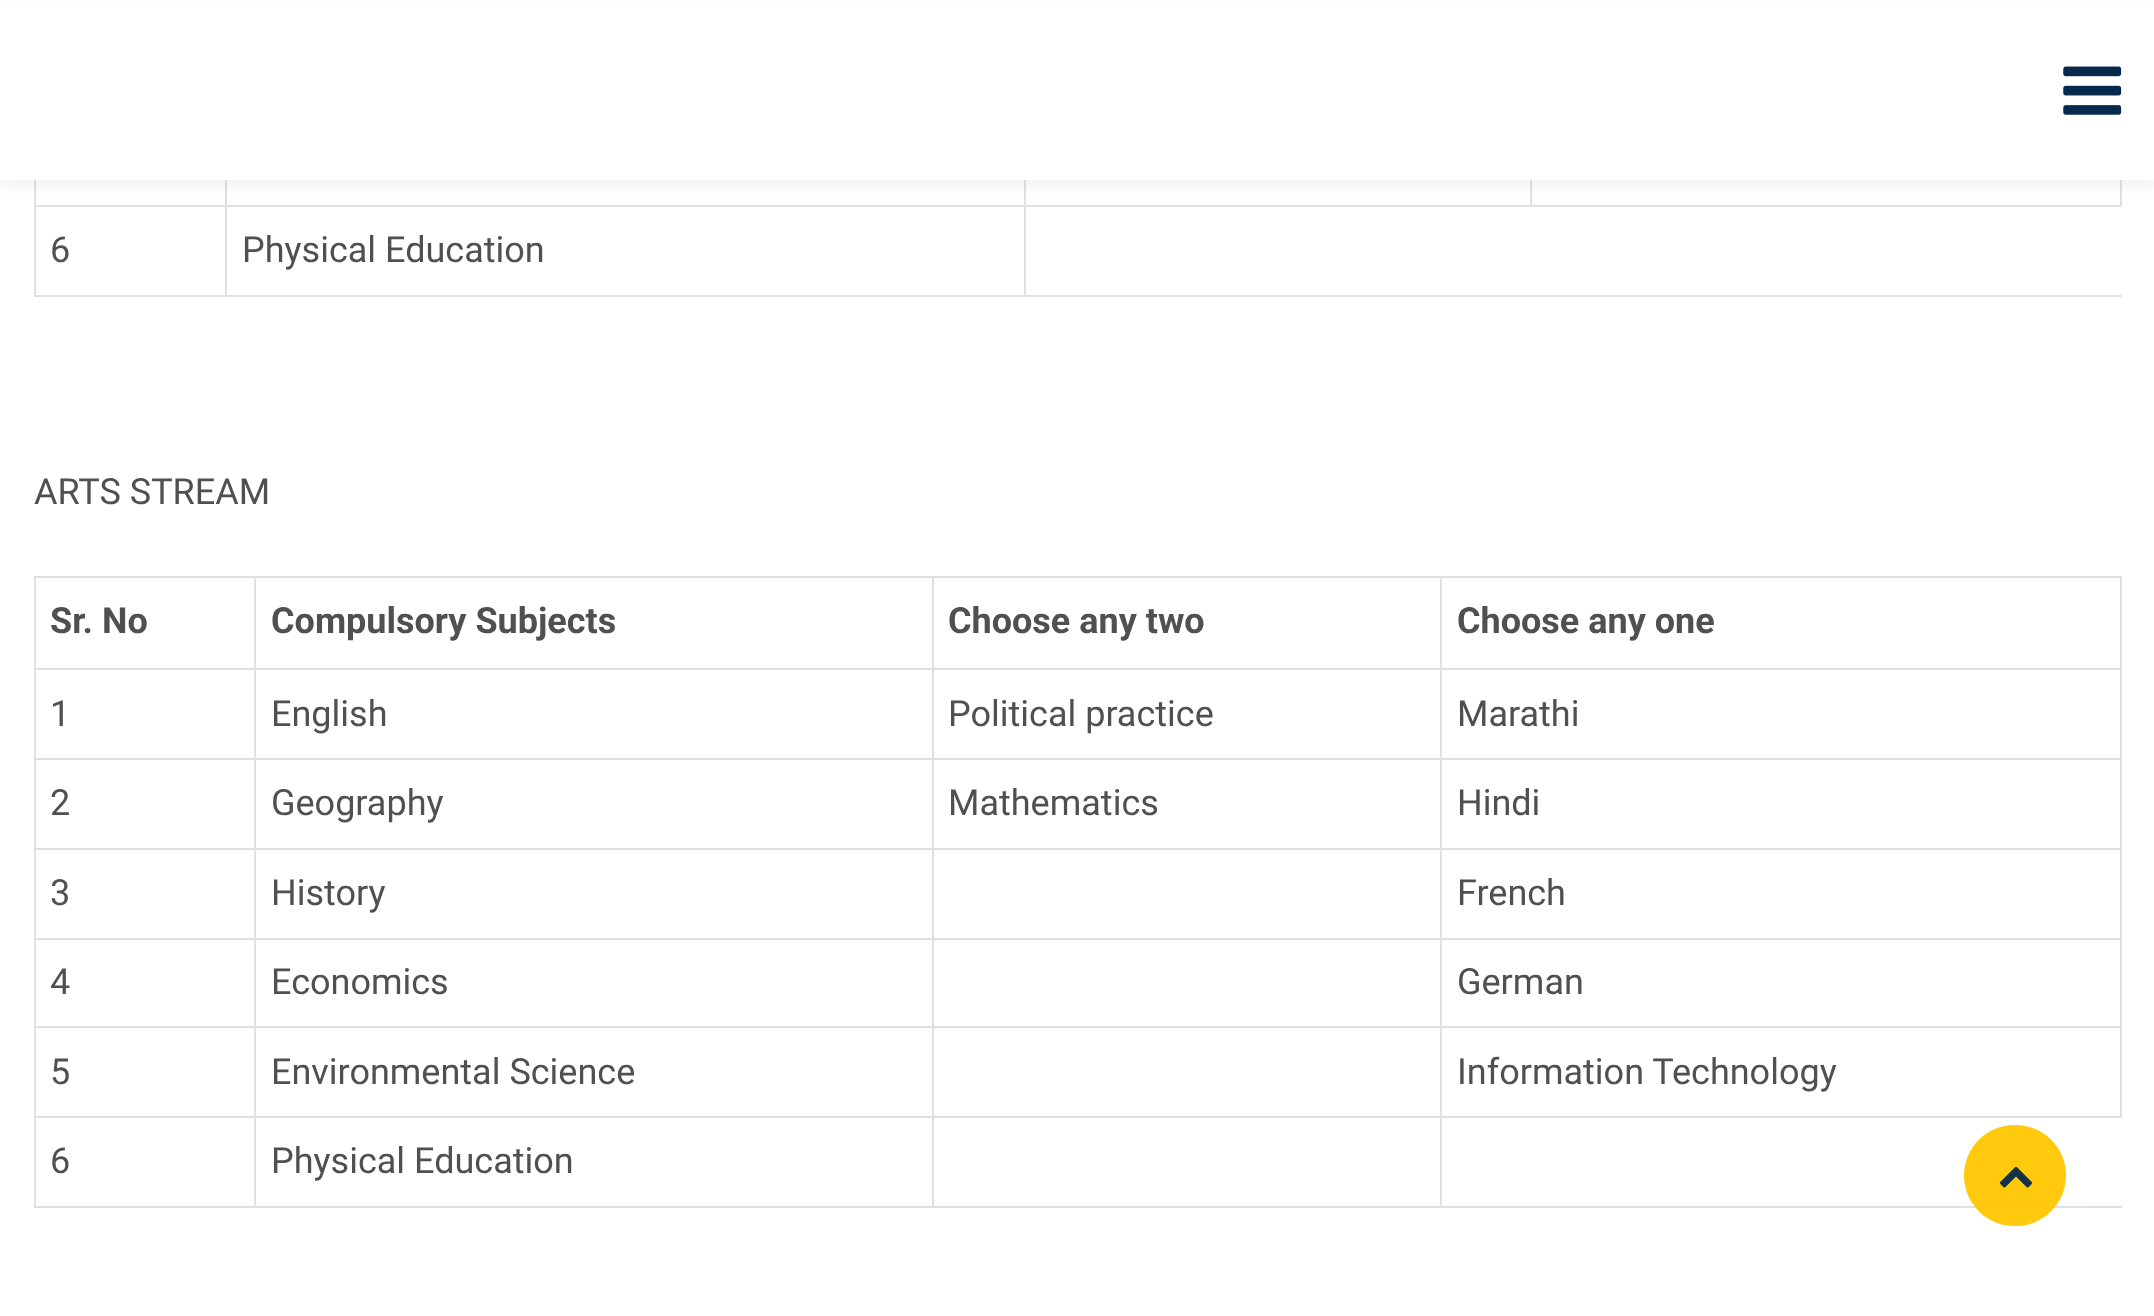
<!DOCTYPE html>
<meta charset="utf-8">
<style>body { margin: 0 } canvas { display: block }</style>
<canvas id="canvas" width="2154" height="1316"></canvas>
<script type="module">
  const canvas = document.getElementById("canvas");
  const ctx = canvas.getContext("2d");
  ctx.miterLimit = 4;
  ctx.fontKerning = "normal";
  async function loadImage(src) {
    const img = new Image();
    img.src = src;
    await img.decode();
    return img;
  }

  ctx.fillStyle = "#ffffff";
  ctx.fillRect(0, 0, 2154, 1316);
  ctx.fillStyle = "#e0e0e0";
  ctx.fillRect(34, 205, 2088, 2);
  ctx.fillRect(2120, 180, 2, 27);
  ctx.fillRect(1530, 180, 2, 27);
  ctx.fillRect(34, 295, 2088, 2);
  ctx.fillRect(34, 180, 2, 117);
  ctx.fillRect(1024, 180, 2, 117);
  ctx.fillRect(225, 180, 2, 117);
  ctx.fillStyle = "rgba(128, 128, 128, 0.1)";
  ctx.filter = "blur(7px)";
  ctx.beginPath();
  ctx.rect(0, 7, 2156, 180);
  ctx.fill();
  ctx.filter = "none";
  ctx.fillStyle = "#ffffff";
  ctx.fillRect(0, 1, 2154, 179);
  ctx.drawImage(await loadImage("img1.png"), 2063, 66, 59, 49);
  ctx.font = "36px Roboto";
  ctx.fillStyle = "#505050";
  ctx.fillText("6", 50, 262);
  ctx.fillText("Physical Education", 242, 262);
  ctx.fillText("ARTS STREAM", 34, 504);
  ctx.fillStyle = "#e0e0e0";
  ctx.fillRect(34, 668, 2088, 2);
  ctx.fillRect(1440, 576, 682, 2);
  ctx.fillRect(34, 758, 2088, 2);
  ctx.fillRect(34, 848, 2088, 2);
  ctx.fillRect(34, 938, 2088, 2);
  ctx.fillRect(34, 1026, 2088, 2);
  ctx.fillRect(34, 1116, 2088, 2);
  ctx.fillRect(34, 1206, 2088, 2);
  ctx.fillRect(1440, 668, 2, 540);
  ctx.fillRect(1440, 576, 2, 95);
  ctx.fillRect(932, 576, 510, 2);
  ctx.fillRect(932, 668, 2, 540);
  ctx.fillRect(932, 576, 2, 95);
  ctx.fillRect(254, 576, 680, 2);
  ctx.fillRect(254, 668, 2, 540);
  ctx.fillRect(254, 576, 2, 95);
  ctx.fillRect(34, 576, 223, 2);
  ctx.fillRect(34, 668, 2, 540);
  ctx.fillRect(34, 576, 2, 95);
  ctx.font = "bold 36px Roboto";
  ctx.fillStyle = "#505050";
  ctx.fillText("Sr. No", 50, 633);
  ctx.fillText("Compulsory Subjects", 271, 633);
  ctx.fillText("Choose any two", 948, 633);
  ctx.fillStyle = "#e0e0e0";
  ctx.fillRect(2120, 668, 2, 450);
  ctx.fillRect(2120, 576, 2, 95);
  ctx.fillStyle = "#505050";
  ctx.fillText("Choose any one", 1457, 633);
  ctx.font = "36px Roboto";
  ctx.fillText("1", 50, 726);
  ctx.fillText("English", 271, 726);
  ctx.fillText("Political practice", 948, 726);
  ctx.fillText("Marathi", 1457, 726);
  ctx.fillText("2", 50, 815);
  ctx.fillText("Geography", 271, 815);
  ctx.fillText("Mathematics", 948, 815);
  ctx.fillText("Hindi", 1457, 815);
  ctx.fillText("3", 50, 905);
  ctx.fillText("History", 271, 905);
  ctx.fillText("French", 1457, 905);
  ctx.fillText("4", 50, 994);
  ctx.fillText("Economics", 271, 994);
  ctx.fillText("German", 1457, 994);
  ctx.fillText("5", 50, 1084);
  ctx.fillText("Environmental Science", 271, 1084);
  ctx.fillText("Information Technology", 1457, 1084);
  ctx.fillText("6", 50, 1173);
  ctx.fillText("Physical Education", 271, 1173);
  ctx.fillStyle = "rgba(255, 198, 0, 0.95)";
  ctx.beginPath();
  ctx.roundRect(1964, 1125, 102, 101, 50.5);
  ctx.fill();
  ctx.drawImage(await loadImage("img2.png"), 1999, 1166, 34, 22);
</script>
